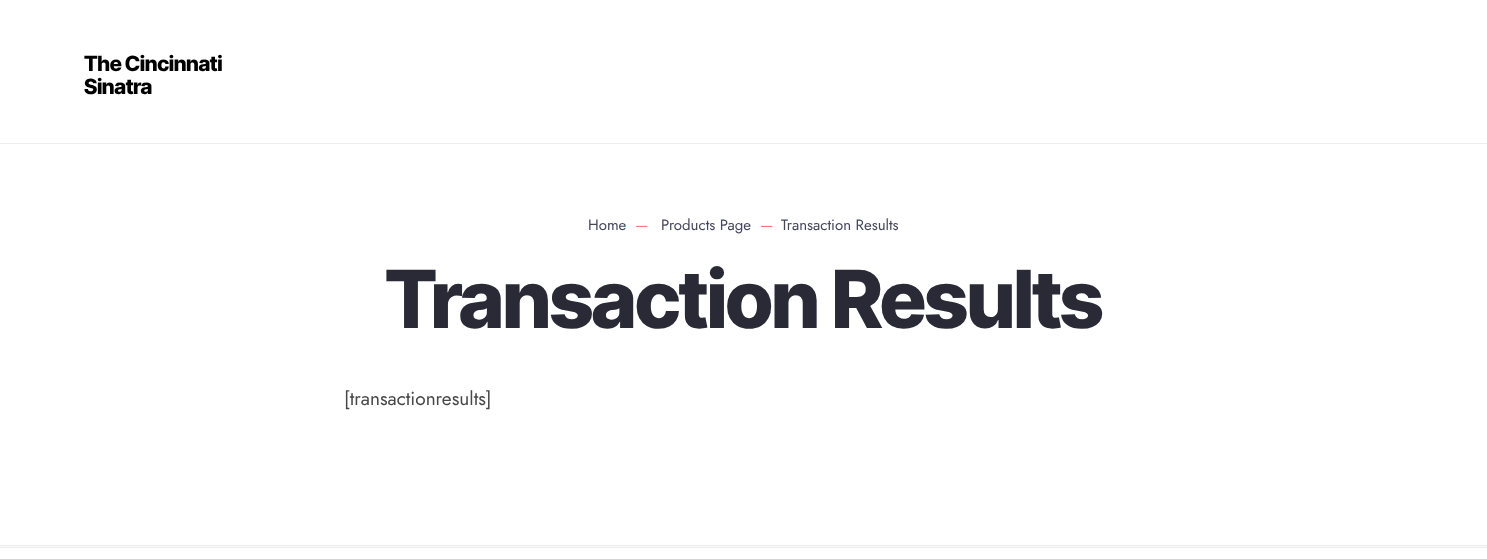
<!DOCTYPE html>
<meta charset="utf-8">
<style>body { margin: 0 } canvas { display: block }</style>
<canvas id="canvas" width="1487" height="559"></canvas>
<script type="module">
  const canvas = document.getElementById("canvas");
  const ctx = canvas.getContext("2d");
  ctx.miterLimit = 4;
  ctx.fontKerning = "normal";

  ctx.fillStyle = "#ffffff";
  ctx.fillRect(0, 0, 1487, 559);
  ctx.fillStyle = "#efefef";
  ctx.fillRect(0, 143, 1487, 1);
  ctx.letterSpacing = "-0.4px";
  ctx.font = "800 21px Inter Tight";
  ctx.fillStyle = "#000000";
  ctx.fillText("The Cincinnati", 84, 71);
  ctx.fillText("Sinatra", 84, 94);
  ctx.letterSpacing = "0px";
  ctx.font = "15px Jost";
  ctx.fillStyle = "#45455b";
  ctx.fillText("Home", 588, 230);
  ctx.fillStyle = "#fc7676";
  ctx.fillText("—", 635, 230);
  ctx.fillStyle = "#45455b";
  ctx.fillText("Products Page", 661, 230);
  ctx.fillStyle = "#fc7676";
  ctx.fillText("—", 760, 230);
  ctx.fillStyle = "#45455b";
  ctx.fillText("Transaction Results", 781, 230);
  ctx.letterSpacing = "-1.6px";
  ctx.font = "800 80px Inter Tight";
  ctx.fillStyle = "#292a35";
  ctx.fillText("Transaction Results", 385, 328);
  ctx.letterSpacing = "0px";
  ctx.font = "19px Jost";
  ctx.fillStyle = "#474747";
  ctx.fillText("[transactionresults]", 344, 405);
  ctx.fillStyle = "#f9f9f9";
  ctx.fillRect(0, 546, 1487, 1);
  ctx.fillStyle = "#ededed";
  ctx.fillRect(0, 545, 1487, 1);
  ctx.fillRect(0, 547, 1487, 1);
</script>
